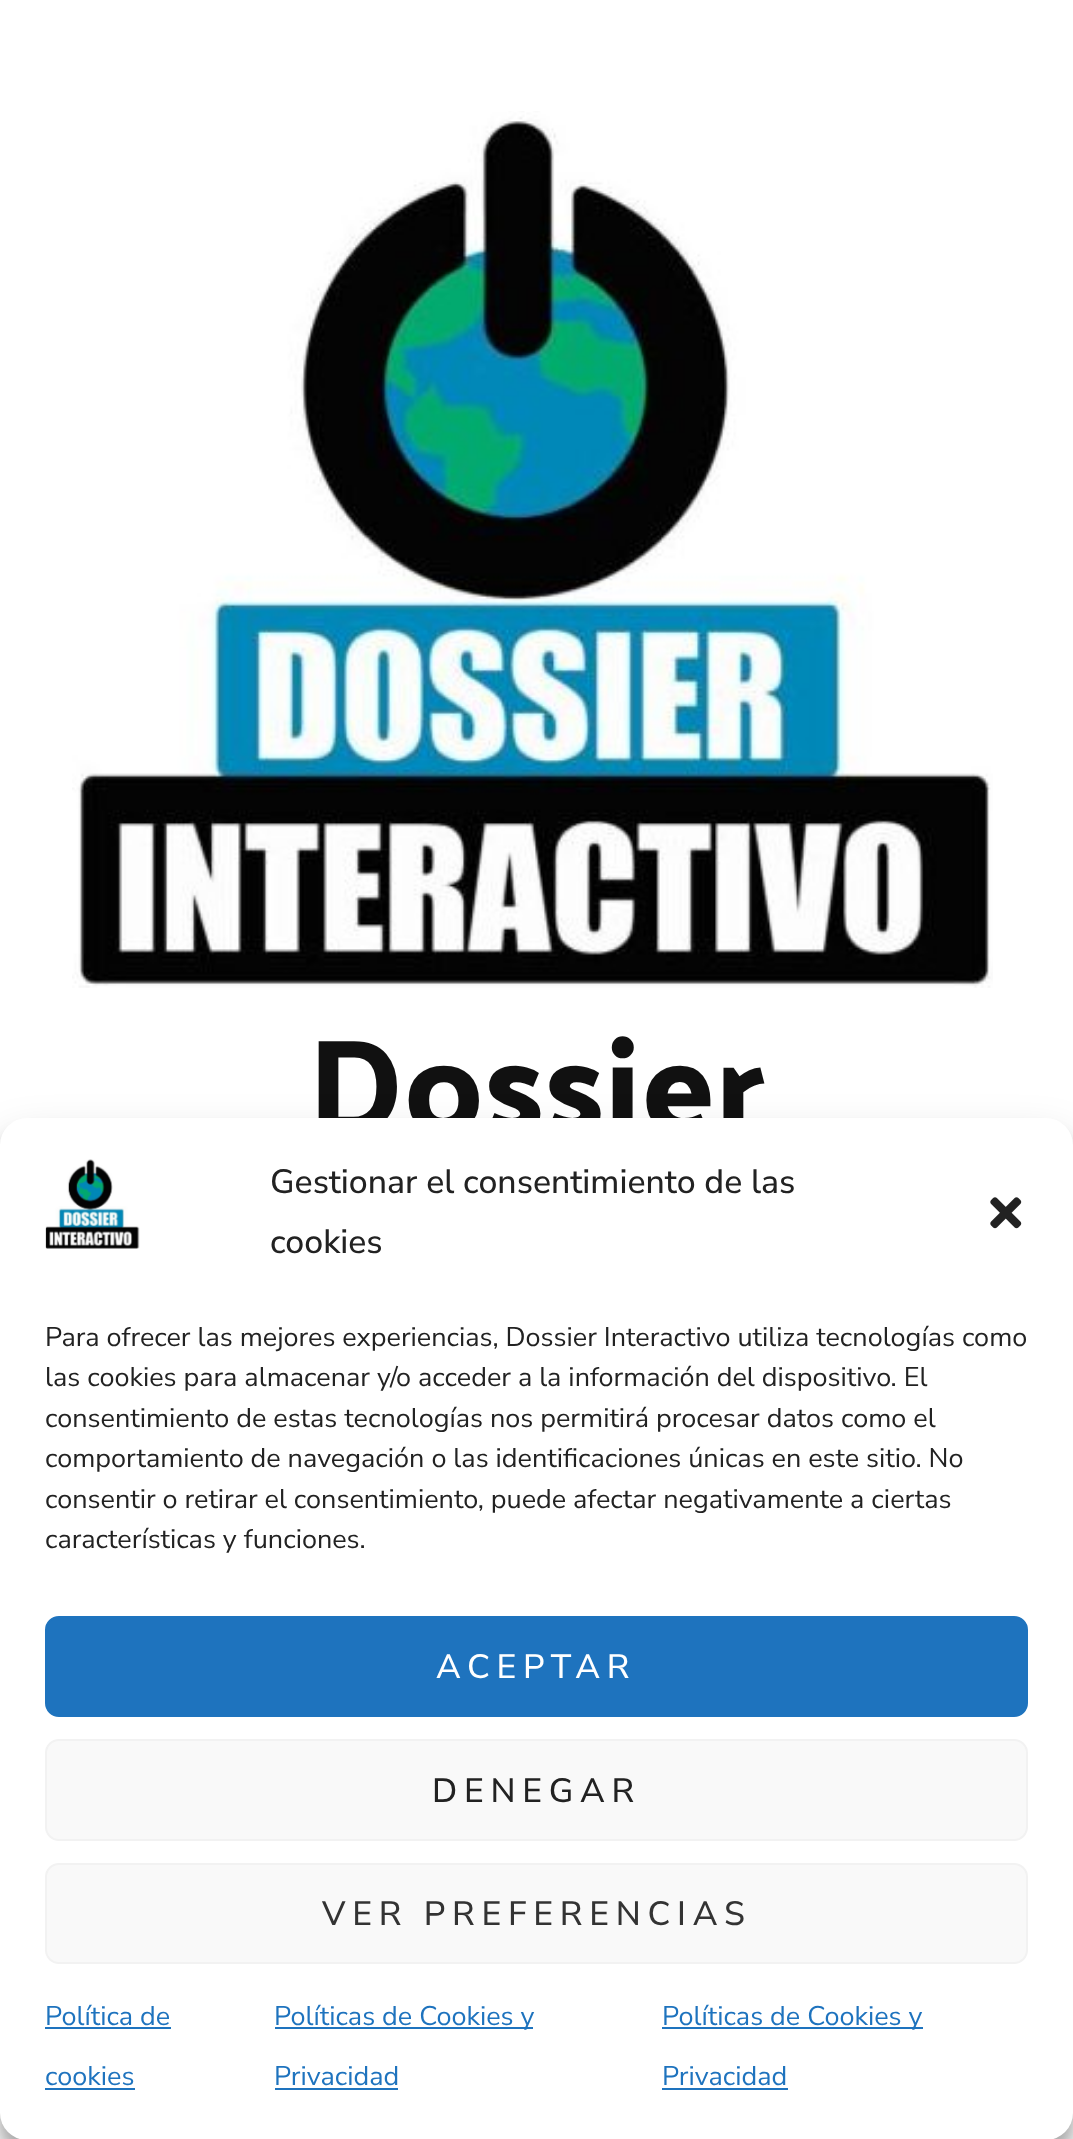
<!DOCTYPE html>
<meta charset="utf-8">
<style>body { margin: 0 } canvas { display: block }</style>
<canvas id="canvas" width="1073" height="2139"></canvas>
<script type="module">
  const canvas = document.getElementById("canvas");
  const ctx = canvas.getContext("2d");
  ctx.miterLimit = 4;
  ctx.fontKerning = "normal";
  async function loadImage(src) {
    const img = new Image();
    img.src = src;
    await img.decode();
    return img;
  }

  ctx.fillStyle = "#ffffff";
  ctx.fillRect(0, 0, 1073, 2139);
  ctx.drawImage(await loadImage("img1.png"), 72, 111, 921, 877);
  ctx.font = "500 135px Palanquin Dark";
  ctx.fillStyle = "#111111";
  ctx.fillText("Dossier", 308, 1133);
  ctx.fillStyle = "rgba(0, 0, 0, 0.23)";
  ctx.filter = "blur(7px)";
  ctx.beginPath();
  ctx.roundRect(0, 1132, 1073, 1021, 27);
  ctx.fill();
  ctx.filter = "none";
  ctx.fillStyle = "rgba(0, 0, 0, 0.19)";
  ctx.filter = "blur(22.5px)";
  ctx.beginPath();
  ctx.roundRect(0, 1141, 1073, 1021, 27);
  ctx.fill();
  ctx.filter = "none";
  ctx.fillStyle = "#ffffff";
  ctx.beginPath();
  ctx.roundRect(0, 1118, 1073, 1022, 27);
  ctx.fill();
  ctx.drawImage(await loadImage("img2.png"), 45, 1159, 95, 90);
  ctx.font = "500 33.75px Nunito Sans";
  ctx.fillStyle = "#222222";
  ctx.fillText("Gestionar el consentimiento de las", 270, 1193);
  ctx.fillText("cookies", 270, 1253);
  ctx.drawImage(await loadImage("img3.png"), 990, 1197, 32, 32);
  ctx.font = "27px Nunito Sans";
  ctx.fillText("Para ofrecer las mejores experiencias, Dossier Interactivo utiliza tecnologías como", 45, 1346);
  ctx.fillText("las cookies para almacenar y/o acceder a la información del dispositivo. El", 45, 1386);
  ctx.fillText("consentimiento de estas tecnologías nos permitirá procesar datos como el", 45, 1427);
  ctx.fillText("comportamiento de navegación o las identificaciones únicas en este sitio. No", 45, 1467);
  ctx.fillText("consentir o retirar el consentimiento, puede afectar negativamente a ciertas", 45, 1508);
  ctx.fillText("características y funciones.", 45, 1548);
  ctx.fillStyle = "#1e73be";
  ctx.beginPath();
  ctx.roundRect(46, 1617, 981, 99, 13);
  ctx.fill();
  ctx.strokeStyle = "#1e73be";
  ctx.lineWidth = 2;
  ctx.stroke();
  ctx.letterSpacing = "6.75px";
  ctx.font = "500 33.75px Nunito Sans";
  ctx.fillStyle = "#ffffff";
  ctx.fillText("ACEPTAR", 436, 1678);
  ctx.fillStyle = "#f9f9f9";
  ctx.beginPath();
  ctx.roundRect(46, 1740, 981, 100, 13);
  ctx.fill();
  ctx.strokeStyle = "#f2f2f2";
  ctx.stroke();
  ctx.fillStyle = "#222222";
  ctx.fillText("DENEGAR", 432, 1802);
  ctx.fillStyle = "#f9f9f9";
  ctx.beginPath();
  ctx.roundRect(46, 1864, 981, 99, 13);
  ctx.fill();
  ctx.stroke();
  ctx.fillStyle = "#333333";
  ctx.fillText("VER PREFERENCIAS", 322, 1925);
  ctx.letterSpacing = "0px";
  ctx.font = "27px Nunito Sans";
  ctx.fillStyle = "#1e73be";
  ctx.fillText("Política de", 45, 2025);
  ctx.fillRect(45, 2027, 126, 2);
  ctx.fillText("cookies", 45, 2085);
  ctx.fillRect(45, 2088, 90, 2);
  ctx.fillRect(275, 2027, 258, 2);
  ctx.fillText("Políticas de Cookies y", 274, 2025);
  ctx.fillText("Privacidad", 274, 2085);
  ctx.fillRect(275, 2088, 123, 2);
  ctx.fillRect(662, 2027, 261, 2);
  ctx.fillText("Políticas de Cookies y", 662, 2025);
  ctx.fillText("Privacidad", 662, 2085);
  ctx.fillRect(662, 2088, 126, 2);
</script>
